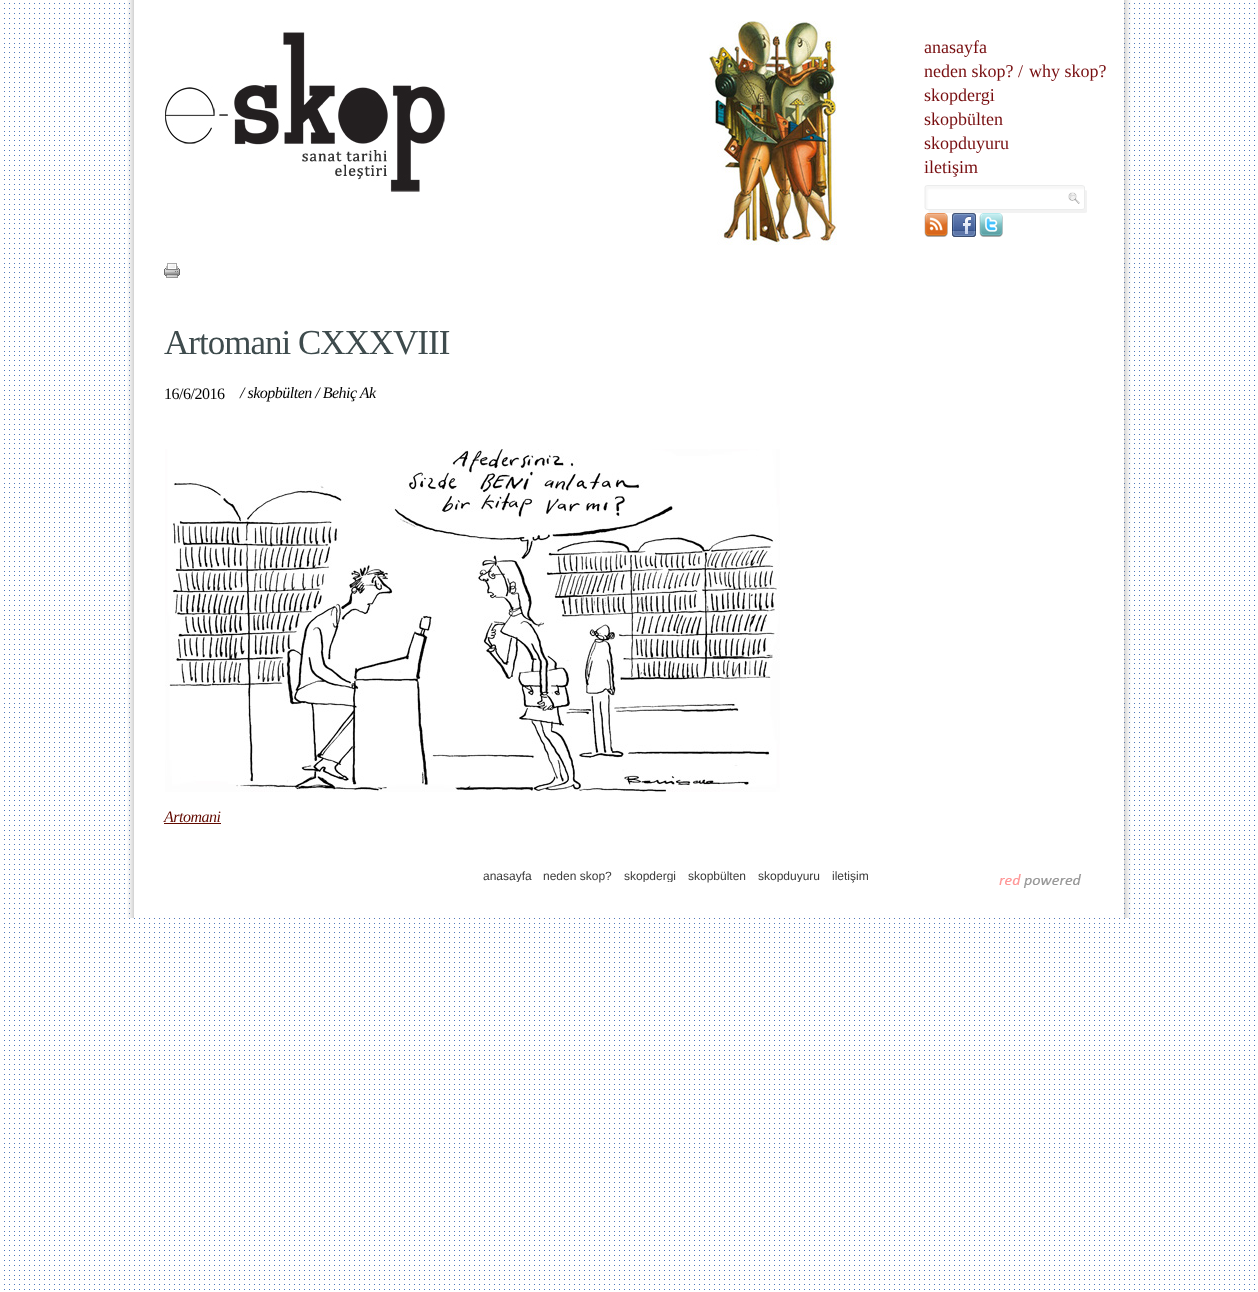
<!DOCTYPE html>
<meta charset="utf-8">
<style>body { margin: 0 } canvas { display: block }</style>
<canvas id="canvas" width="1258" height="1292"></canvas>
<script type="module">
  const canvas = document.getElementById("canvas");
  const ctx = canvas.getContext("2d");
  ctx.miterLimit = 4;
  ctx.fontKerning = "normal";
  async function loadImage(src) {
    const img = new Image();
    img.src = src;
    await img.decode();
    return img;
  }

  ctx.fillStyle = "#ffffff";
  ctx.fillRect(0, 0, 1258, 1292);
  ctx.drawImage(await loadImage("img1.png"), 4, 3, 1251, 1287);
  ctx.drawImage(await loadImage("img2.png"), 127, 0, 1004, 918);
  ctx.drawImage(await loadImage("img3.png"), 165, 32, 280, 160);
  ctx.drawImage(await loadImage("img4.png"), 709, 21, 128, 224);
  ctx.font = "18px Liberation Serif";
  ctx.fillStyle = "#770d0f";
  ctx.fillText("anasayfa", 924, 53);
  ctx.fillText("neden skop?", 924, 77);
  ctx.fillText("/", 1018, 77);
  ctx.fillText("why skop?", 1029, 77);
  ctx.fillText("skopdergi", 924, 101);
  ctx.fillText("skopbülten", 924, 125);
  ctx.fillText("skopduyuru", 924, 149);
  ctx.fillText("iletişim", 924, 173);
  ctx.drawImage(await loadImage("img5.png"), 924, 185, 141, 28);
  ctx.drawImage(await loadImage("img6.png"), 1065, 185, 22, 28);
  ctx.drawImage(await loadImage("img7.png"), 924, 213, 24, 24);
  ctx.drawImage(await loadImage("img8.png"), 952, 213, 24, 24);
  ctx.drawImage(await loadImage("img9.png"), 979, 213, 24, 24);
  ctx.drawImage(await loadImage("img10.png"), 164, 263, 16, 15);
  ctx.letterSpacing = "-1px";
  ctx.font = "35px Liberation Serif";
  ctx.fillStyle = "#3e4b4d";
  ctx.fillText("Artomani CXXXVIII", 164, 354);
  ctx.letterSpacing = "-0.5px";
  ctx.font = "16px Liberation Serif";
  ctx.fillStyle = "#000000";
  ctx.fillText("16/6/2016", 164, 399);
  ctx.font = "italic 16px Liberation Serif";
  ctx.fillText("/ skopbülten / Behiç Ak", 240, 398);
  ctx.drawImage(await loadImage("img11.png"), 165, 449, 615, 343);
  ctx.fillStyle = "#620a00";
  ctx.fillText("Artomani", 164, 822);
  ctx.fillRect(164, 823, 57, 1);
  ctx.save();
  ctx.beginPath();
  ctx.rect(483, 870, 398, 12);
  ctx.clip();
  ctx.letterSpacing = "0px";
  ctx.font = "12px Liberation Sans";
  ctx.fillStyle = "#3a3a3a";
  ctx.fillText("anasayfa", 483, 880);
  ctx.restore();
  ctx.letterSpacing = "0px";
  ctx.font = "12px Liberation Sans";
  ctx.fillStyle = "#3a3a3a";
  ctx.fillText("neden skop?", 543, 880);
  ctx.save();
  ctx.beginPath();
  ctx.rect(483, 870, 398, 12);
  ctx.clip();
  ctx.fillText("skopdergi", 624, 880);
  ctx.restore();
  ctx.fillText("skopbülten", 688, 880);
  ctx.save();
  ctx.beginPath();
  ctx.rect(483, 870, 398, 12);
  ctx.clip();
  ctx.fillText("skopduyuru", 758, 880);
  ctx.restore();
  ctx.fillText("iletişim", 832, 880);
  ctx.drawImage(await loadImage("img12.png"), 999, 874, 83, 14);
</script>
